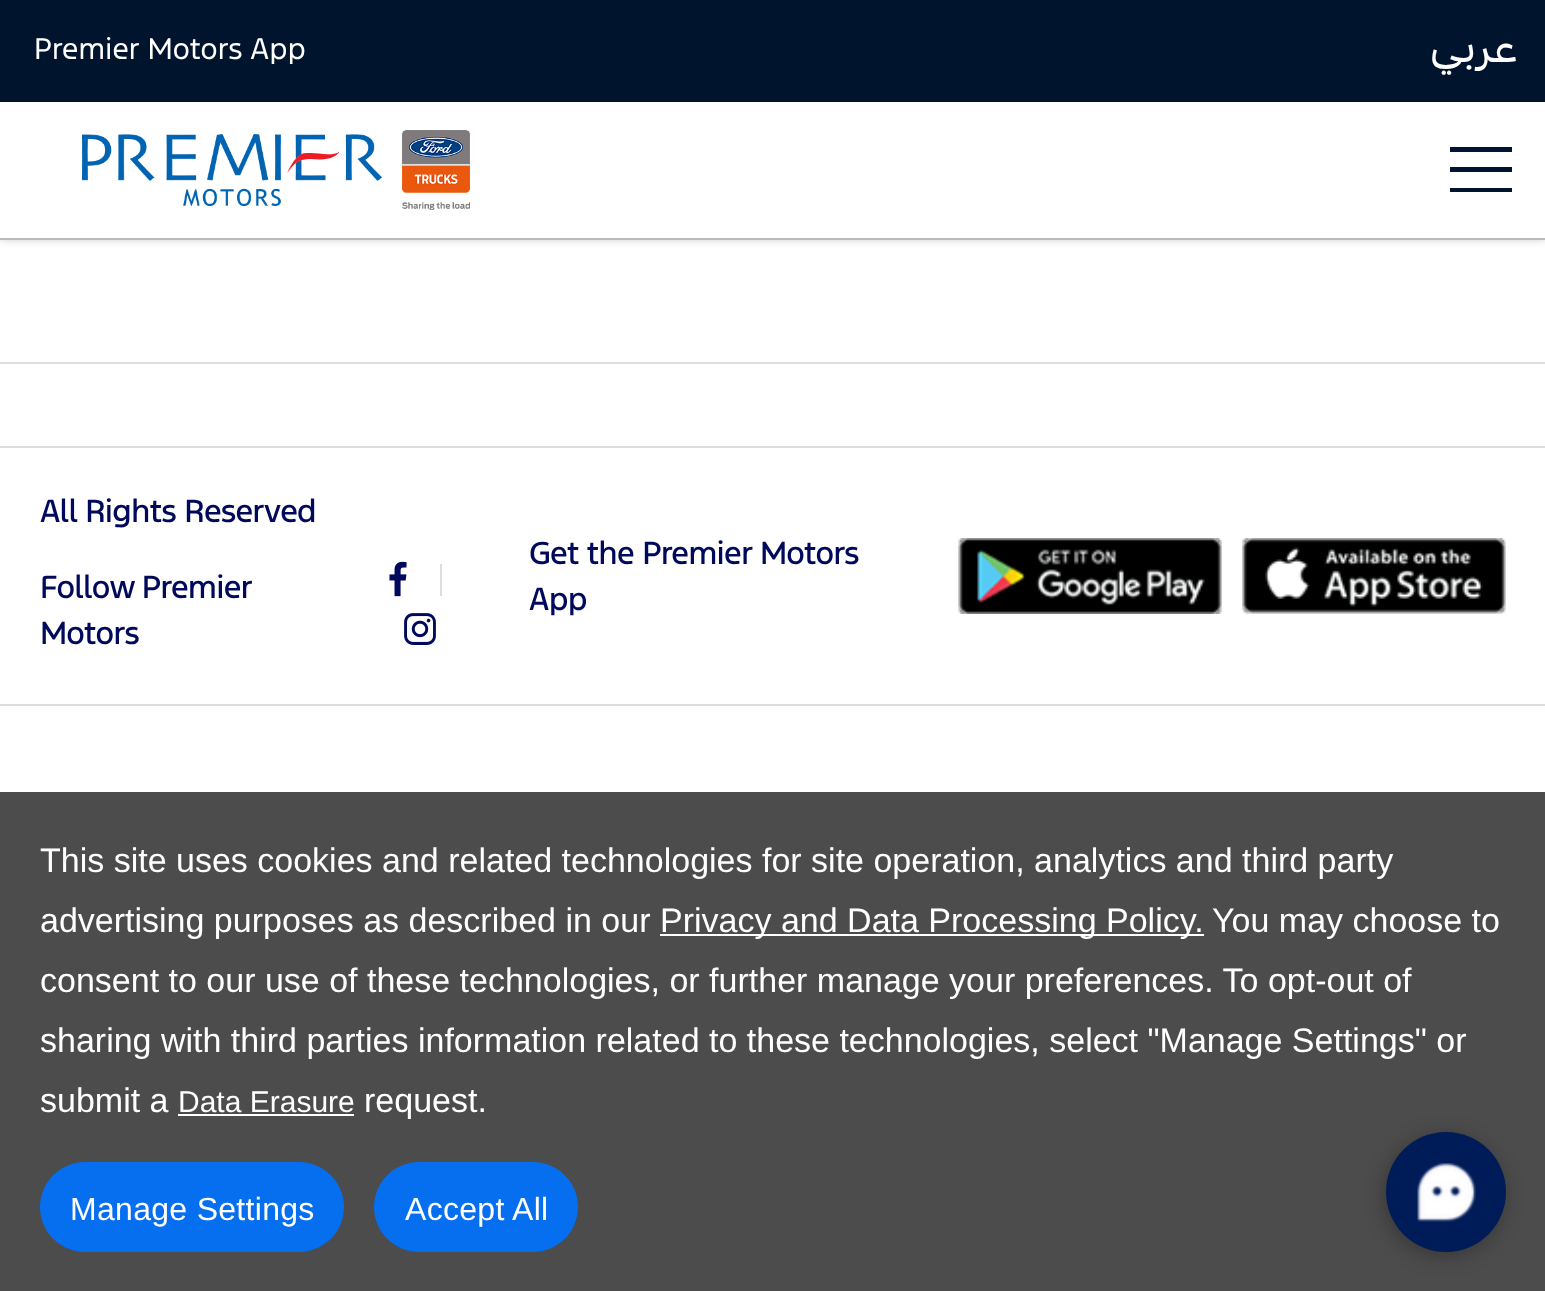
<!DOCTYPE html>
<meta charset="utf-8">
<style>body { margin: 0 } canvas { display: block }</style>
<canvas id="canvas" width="1545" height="1291"></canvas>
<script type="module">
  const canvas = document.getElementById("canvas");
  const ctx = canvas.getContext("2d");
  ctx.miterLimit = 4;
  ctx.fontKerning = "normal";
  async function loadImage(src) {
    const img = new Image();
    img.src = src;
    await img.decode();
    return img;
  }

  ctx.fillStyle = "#ffffff";
  ctx.fillRect(0, 0, 1545, 1291);
  ctx.fillStyle = "rgba(0, 0, 0, 0.3)";
  ctx.filter = "blur(5px)";
  ctx.beginPath();
  ctx.rect(0, 0, 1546, 238);
  ctx.fill();
  ctx.filter = "none";
  ctx.fillStyle = "#ffffff";
  ctx.fillRect(0, 102, 1545, 136);
  ctx.fillStyle = "#bababa";
  ctx.fillRect(0, 238, 1545, 2);
  ctx.fillStyle = "#00142d";
  ctx.fillRect(0, 0, 1545, 102);
  ctx.font = "28px 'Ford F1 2'";
  ctx.fillStyle = "#ffffff";
  ctx.fillText("Premier Motors App", 34, 59);
  ctx.direction = "rtl";
  ctx.font = "44px 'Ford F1'";
  ctx.fillText("عربي", 1518, 62);
  ctx.drawImage(await loadImage("img1.png"), 82, 134, 300, 72);
  ctx.drawImage(await loadImage("img2.png"), 402, 130, 68, 80);
  ctx.fillStyle = "#00142d";
  ctx.beginPath();
  ctx.moveTo(1450, 167);
  ctx.lineTo(1512, 167);
  ctx.lineTo(1512, 172);
  ctx.lineTo(1450, 172);
  ctx.closePath();
  ctx.moveTo(1450, 188);
  ctx.lineTo(1512, 188);
  ctx.lineTo(1512, 192);
  ctx.lineTo(1450, 192);
  ctx.closePath();
  ctx.moveTo(1450, 147);
  ctx.lineTo(1512, 147);
  ctx.lineTo(1512, 152);
  ctx.lineTo(1450, 152);
  ctx.closePath();
  ctx.fill();
  ctx.fillStyle = "#dddddd";
  ctx.fillRect(0, 362, 1545, 2);
  ctx.fillRect(0, 704, 1545, 2);
  ctx.fillRect(0, 446, 1545, 2);
  ctx.letterSpacing = "-0.75px";
  ctx.direction = "ltr";
  ctx.font = "500 30px 'Ford F1'";
  ctx.fillStyle = "#01095c";
  ctx.fillText("All Rights Reserved", 40, 522);
  ctx.wordSpacing = "-1px";
  ctx.fillText("Follow Premier", 40, 598);
  ctx.wordSpacing = "0px";
  ctx.fillText("Motors", 40, 644);
  ctx.drawImage(await loadImage("img3.png"), 389, 561, 18, 36);
  ctx.fillStyle = "#dddddd";
  ctx.fillRect(440, 564, 2, 32);
  ctx.drawImage(await loadImage("img4.png"), 404, 613, 32, 32);
  ctx.fillStyle = "#01095c";
  ctx.fillText("Get the Premier Motors", 529, 564);
  ctx.fillText("App", 529, 610);
  ctx.drawImage(await loadImage("img5.png"), 958, 538, 264, 76);
  ctx.drawImage(await loadImage("img6.png"), 1242, 538, 264, 76);
  ctx.fillStyle = "#4b4c4b";
  ctx.fillRect(0, 792, 1545, 499);
  ctx.letterSpacing = "0px";
  ctx.font = "34px Liberation Sans";
  ctx.fillStyle = "#ffffff";
  ctx.fillText("This site uses cookies and related technologies for site operation, analytics and third party", 40, 872);
  ctx.fillText("advertising purposes as described in our", 40, 932);
  ctx.fillRect(660, 934, 544, 2);
  ctx.fillText("Privacy and Data Processing Policy.", 660, 932);
  ctx.fillText("You may choose to", 1212, 932);
  ctx.fillText("consent to our use of these technologies, or further manage your preferences. To opt-out of", 40, 992);
  ctx.fillText("sharing with third parties information related to these technologies, select \"Manage Settings\" or", 40, 1052);
  ctx.fillText("submit a", 40, 1112);
  ctx.fillRect(178, 1114, 176, 2);
  ctx.font = "30px Liberation Sans";
  ctx.fillText("Data Erasure", 178, 1112);
  ctx.font = "34px Liberation Sans";
  ctx.fillText("request.", 364, 1112);
  ctx.fillStyle = "#066fef";
  ctx.beginPath();
  ctx.roundRect(40, 1162, 304, 90, 45);
  ctx.fill();
  ctx.letterSpacing = "0.3px";
  ctx.font = "32px Liberation Sans";
  ctx.fillStyle = "#ffffff";
  ctx.fillText("Manage Settings", 70, 1220);
  ctx.fillStyle = "#066fef";
  ctx.beginPath();
  ctx.roundRect(374, 1162, 204, 90, 45);
  ctx.fill();
  ctx.fillStyle = "#ffffff";
  ctx.fillText("Accept All", 405, 1220);
  ctx.fillStyle = "rgba(0, 0, 0, 0.28)";
  ctx.filter = "blur(10px)";
  ctx.beginPath();
  ctx.roundRect(1384, 1136, 120, 120, 60);
  ctx.fill();
  ctx.filter = "none";
  ctx.fillStyle = "#001c58";
  ctx.beginPath();
  ctx.arc(1446, 1192, 60, 0, Math.PI * 2);
  ctx.fill();
  ctx.drawImage(await loadImage("img7.png"), 1417, 1163, 59, 59);
</script>
